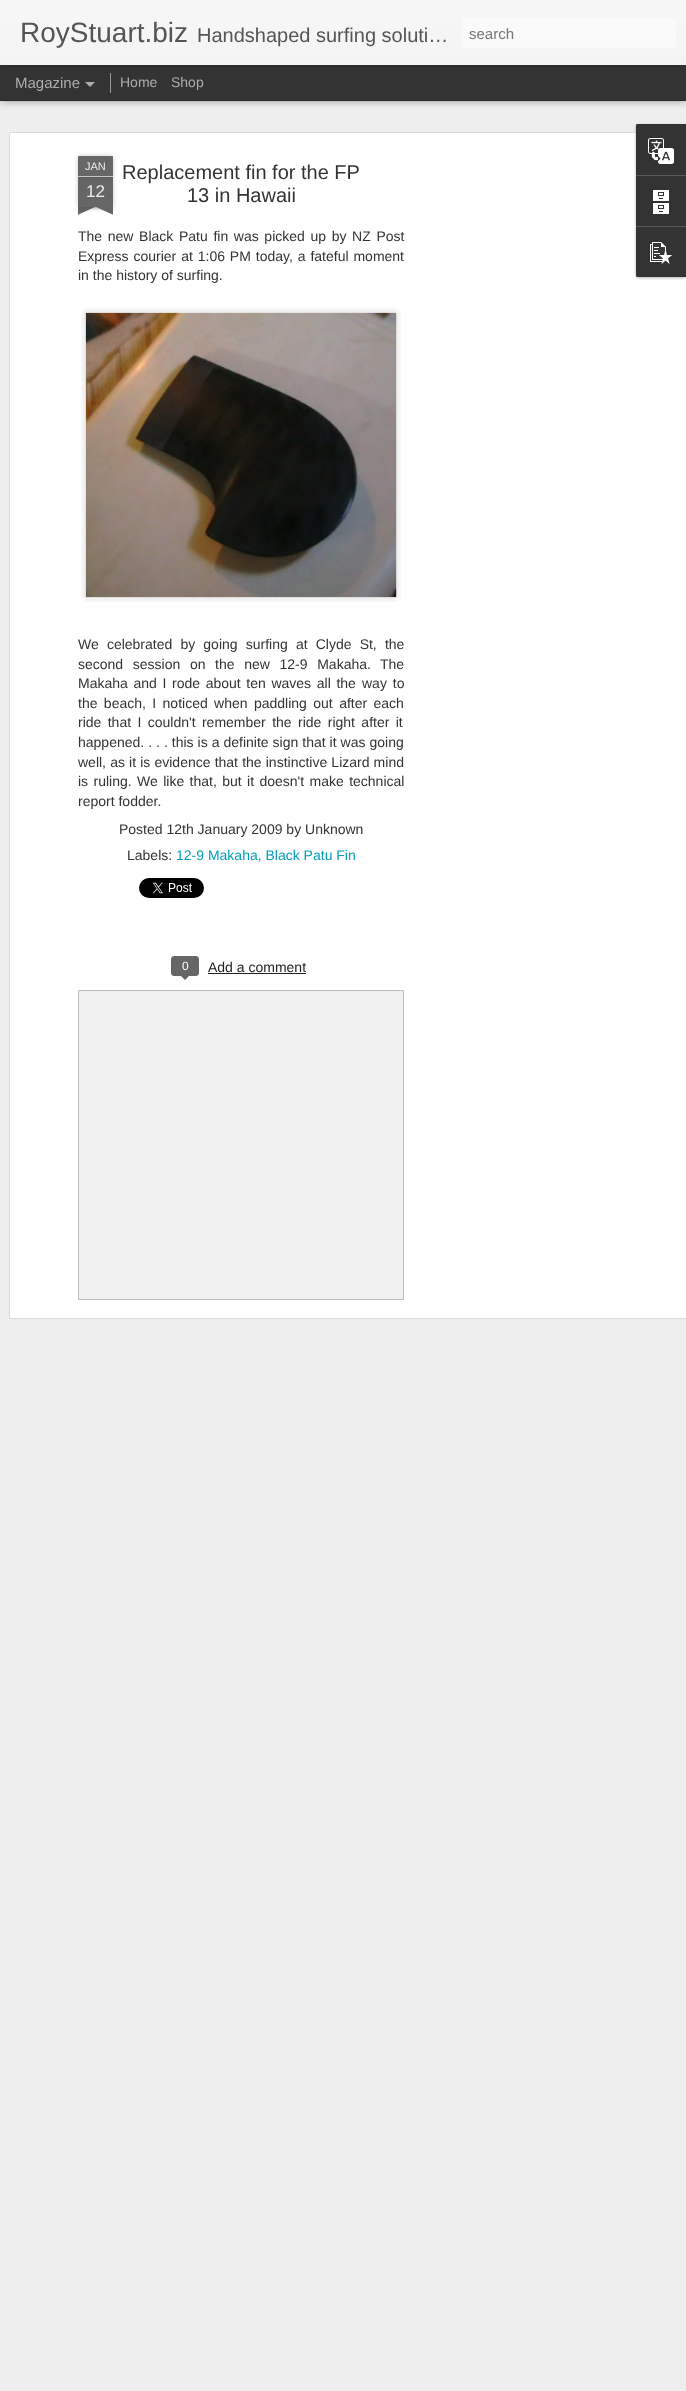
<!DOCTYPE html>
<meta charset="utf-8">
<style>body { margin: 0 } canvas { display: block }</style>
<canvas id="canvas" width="686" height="2391"></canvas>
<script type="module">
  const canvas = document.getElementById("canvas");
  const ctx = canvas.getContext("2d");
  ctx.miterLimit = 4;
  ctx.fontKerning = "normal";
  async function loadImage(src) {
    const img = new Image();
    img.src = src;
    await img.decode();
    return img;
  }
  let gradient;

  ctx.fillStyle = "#333333";
  ctx.fillRect(0, 0, 686, 2391);
  ctx.fillStyle = "#eeeeee";
  ctx.fillRect(0, 101, 686, 2290);
  ctx.fillStyle = "rgba(0, 0, 0, 0.5)";
  ctx.filter = "blur(4px)";
  ctx.beginPath();
  ctx.rect(0, 65, 686, 35);
  ctx.fill();
  ctx.filter = "none";
  ctx.fillStyle = "#333333";
  ctx.fillRect(0, 65, 686, 35);
  ctx.fillStyle = "#999999";
  ctx.fillRect(110, 73, 1, 20);
  ctx.fillStyle = "rgba(0, 0, 0, 0.3)";
  ctx.filter = "blur(2.5px)";
  ctx.beginPath();
  ctx.rect(0, 0, 686, 65);
  ctx.fill();
  ctx.filter = "none";
  gradient = ctx.createLinearGradient(0, 0, 0, 65);
  gradient.addColorStop(0, "#f7f7f7");
  gradient.addColorStop(1, "#f4f4f4");
  ctx.fillStyle = gradient;
  ctx.fillRect(0, 0, 686, 65);
  ctx.font = "28px Liberation Sans";
  ctx.fillStyle = "#555555";
  ctx.fillText("RoyStuart.biz", 20, 42);
  ctx.font = "20px Liberation Sans";
  ctx.fillText("Handshaped surfing soluti…", 197, 42);
  ctx.fillStyle = "#fafafa";
  ctx.beginPath();
  ctx.roundRect(462, 18, 214, 30, 3);
  ctx.fill();
  ctx.font = "15px Liberation Sans";
  ctx.fillStyle = "#757575";
  ctx.fillText("search", 469, 39);
  ctx.fillStyle = "#adadad";
  ctx.fillText("Magazine", 15, 88);
  ctx.beginPath();
  ctx.moveTo(85, 82);
  ctx.lineTo(95, 82);
  ctx.lineTo(90, 87);
  ctx.closePath();
  ctx.fill();
  ctx.font = "14px Liberation Sans";
  ctx.fillText("Home", 120, 87);
  ctx.fillText("Shop", 171, 87);
  ctx.fillStyle = "#ffffff";
  ctx.fillRect(8, 131, 678, 1189);
  ctx.drawImage(await loadImage("img1.png"), 8, 131, 678, 1189);
  ctx.fillStyle = "rgba(0, 0, 0, 0.2)";
  ctx.filter = "blur(2.5px)";
  ctx.beginPath();
  ctx.rect(78, 177, 35, 30);
  ctx.fill();
  ctx.filter = "none";
  ctx.fillStyle = "#666666";
  ctx.fillRect(78, 177, 35, 30);
  ctx.fillStyle = "rgba(0, 0, 0, 0.2)";
  ctx.filter = "blur(2.5px)";
  ctx.beginPath();
  ctx.roundRect(78, 156, 35, 21, 1);
  ctx.fill();
  ctx.filter = "none";
  ctx.fillStyle = "#666666";
  ctx.beginPath();
  ctx.roundRect(78, 156, 35, 21, [1, 1, 0, 0]);
  ctx.fill();
  ctx.fillStyle = "#c2c2c2";
  ctx.fillRect(78, 176, 35, 1);
  ctx.font = "11px Liberation Sans";
  ctx.fillStyle = "#eeeeee";
  ctx.fillText("JAN", 85, 170);
  ctx.font = "17px Liberation Sans";
  ctx.fillText("12", 86, 197);
  ctx.save();
  ctx.beginPath();
  ctx.rect(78, 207, 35, 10);
  ctx.clip();
  ctx.fillStyle = "rgba(0, 0, 0, 0.2)";
  ctx.filter = "blur(2.5px)";
  ctx.beginPath();
  ctx.rect(69, 197, 50, 10);
  ctx.fill();
  ctx.filter = "none";
  ctx.restore();
  ctx.save();
  ctx.beginPath();
  ctx.rect(78, 207, 35, 10);
  ctx.clip();
  ctx.fillStyle = "#666666";
  ctx.beginPath();
  ctx.moveTo(69, 208);
  ctx.lineTo(115, 187);
  ctx.lineTo(119, 196);
  ctx.lineTo(73, 217);
  ctx.closePath();
  ctx.fill();
  ctx.restore();
  ctx.save();
  ctx.beginPath();
  ctx.rect(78, 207, 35, 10);
  ctx.clip();
  ctx.fillStyle = "rgba(0, 0, 0, 0.2)";
  ctx.filter = "blur(2.5px)";
  ctx.beginPath();
  ctx.rect(72, 197, 50, 10);
  ctx.fill();
  ctx.filter = "none";
  ctx.restore();
  ctx.save();
  ctx.beginPath();
  ctx.rect(78, 207, 35, 10);
  ctx.clip();
  ctx.fillStyle = "#666666";
  ctx.beginPath();
  ctx.moveTo(76, 187);
  ctx.lineTo(122, 208);
  ctx.lineTo(118, 217);
  ctx.lineTo(72, 196);
  ctx.closePath();
  ctx.fill();
  ctx.restore();
  ctx.font = "20px Liberation Sans";
  ctx.fillStyle = "#333333";
  ctx.fillText("Replacement fin for the FP", 122, 179);
  ctx.fillText("13 in Hawaii", 187, 202);
  ctx.wordSpacing = "1.75px";
  ctx.font = "14px Liberation Sans";
  ctx.fillText("The new Black Patu fin was picked up by NZ Post", 78, 241);
  ctx.wordSpacing = "1px";
  ctx.fillText("Express courier at 1:06 PM today, a fateful moment", 78, 261);
  ctx.wordSpacing = "0px";
  ctx.fillText("in the history of surfing.", 78, 280);
  ctx.drawImage(await loadImage("img2.png"), 81, 308, 320, 294);
  ctx.drawImage(await loadImage("img3.png"), 85, 312, 312, 286);
  ctx.wordSpacing = "4.25px";
  ctx.fillText("We celebrated by going surfing at Clyde St, the", 78, 649);
  ctx.wordSpacing = "5.75px";
  ctx.fillText("second session on the new 12-9 Makaha.", 78, 669);
  ctx.wordSpacing = "0px";
  ctx.fillText("The", 380, 669);
  ctx.wordSpacing = "1.75px";
  ctx.fillText("Makaha and I rode about ten waves all the", 78, 688);
  ctx.wordSpacing = "2px";
  ctx.fillText("way to", 362, 688);
  ctx.wordSpacing = "2.5px";
  ctx.fillText("the beach, I noticed when paddling out after each", 78, 708);
  ctx.fillText("ride that I couldn't remember the ride right after it", 78, 727);
  ctx.wordSpacing = "0.1px";
  ctx.fillText("happened. . . . this is a definite sign that it was going", 78, 747);
  ctx.wordSpacing = "0.25px";
  ctx.fillText("well, as it is evidence that the instinctive Lizard mind", 78, 767);
  ctx.wordSpacing = "1.5px";
  ctx.fillText("is ruling. We like that, but it doesn't make technical", 78, 786);
  ctx.wordSpacing = "0px";
  ctx.fillText("report fodder.", 78, 806);
  ctx.fillText("Posted 12th January 2009 by Unknown", 119, 834);
  ctx.fillText("Labels:", 127, 860);
  ctx.fillStyle = "#009eb8";
  ctx.fillText("12-9 Makaha, Black Patu Fin", 176, 860);
  ctx.drawImage(await loadImage("img4.png"), 139, 878, 65, 20);
  ctx.fillStyle = "#666666";
  ctx.beginPath();
  ctx.roundRect(171.5, 956.5, 27, 19, 2.5);
  ctx.fill();
  ctx.strokeStyle = "#666666";
  ctx.stroke();
  ctx.font = "12px Liberation Sans";
  ctx.fillStyle = "#ffffff";
  ctx.fillText("0", 182, 970);
  ctx.fillStyle = "#666666";
  ctx.beginPath();
  ctx.moveTo(180, 975);
  ctx.lineTo(190, 975);
  ctx.lineTo(185, 980);
  ctx.closePath();
  ctx.fill();
  ctx.font = "14px Liberation Sans";
  ctx.fillStyle = "#222222";
  ctx.fillText("Add a comment", 208, 972);
  ctx.fillRect(208, 973, 98, 1);
  ctx.fillStyle = "#f1f1f1";
  ctx.beginPath();
  ctx.rect(78.5, 990.5, 325, 309);
  ctx.fill();
  ctx.strokeStyle = "#bbbbbb";
  ctx.stroke();
  ctx.fillStyle = "rgba(0, 0, 0, 0.3)";
  ctx.filter = "blur(1.5px)";
  ctx.beginPath();
  ctx.roundRect(636, 125, 50, 153, 2);
  ctx.fill();
  ctx.filter = "none";
  ctx.fillStyle = "#333333";
  ctx.beginPath();
  ctx.roundRect(636, 124, 50, 153, [2, 0, 0, 2]);
  ctx.fill();
  ctx.beginPath();
  ctx.roundRect(636, 124, 50, 51, [2, 0, 0, 0]);
  ctx.fill();
  ctx.drawImage(await loadImage("img5.png"), 648, 138, 26, 26);
  ctx.fillStyle = "#585858";
  ctx.fillRect(636, 175, 50, 1);
  ctx.drawImage(await loadImage("img6.png"), 653, 190, 16, 24);
  ctx.fillStyle = "#333333";
  ctx.beginPath();
  ctx.roundRect(636, 226, 50, 51, [0, 0, 0, 2]);
  ctx.fill();
  ctx.fillStyle = "#585858";
  ctx.fillRect(636, 226, 50, 1);
  ctx.drawImage(await loadImage("img7.png"), 650, 242, 22, 22);
</script>
